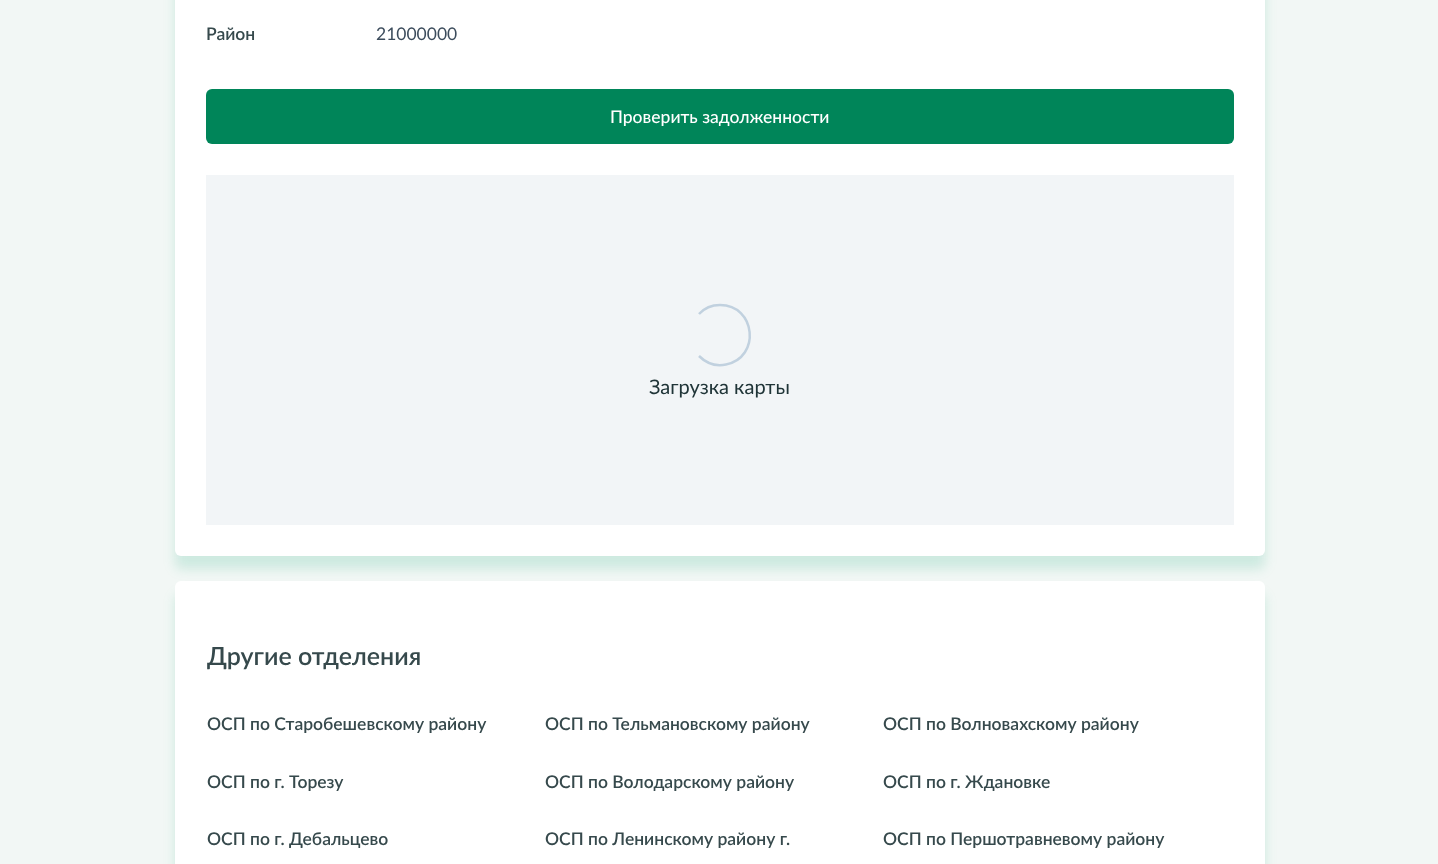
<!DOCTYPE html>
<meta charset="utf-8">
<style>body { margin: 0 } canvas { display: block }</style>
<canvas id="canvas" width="1438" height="864"></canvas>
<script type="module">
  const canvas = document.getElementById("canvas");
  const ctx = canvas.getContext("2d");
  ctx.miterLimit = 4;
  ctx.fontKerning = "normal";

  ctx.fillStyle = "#f2f7f5";
  ctx.fillRect(0, 0, 1438, 864);
  ctx.fillStyle = "rgba(3, 160, 108, 0.15)";
  ctx.filter = "blur(6px)";
  ctx.beginPath();
  ctx.roundRect(175, -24, 1090, 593, 6);
  ctx.fill();
  ctx.filter = "none";
  ctx.fillStyle = "#ffffff";
  ctx.beginPath();
  ctx.roundRect(175, -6, 1090, 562, 6);
  ctx.fill();
  ctx.font = "600 17.5px Lato";
  ctx.fillStyle = "#36494c";
  ctx.fillText("Район", 206, 40);
  ctx.font = "17.5px Lato";
  ctx.fillStyle = "#3c4c5c";
  ctx.fillText("21000000", 376, 40);
  ctx.fillStyle = "#008559";
  ctx.beginPath();
  ctx.roundRect(206, 89, 1028, 55, 6);
  ctx.fill();
  ctx.font = "500 17.5px Lato";
  ctx.fillStyle = "#ffffff";
  ctx.fillText("Проверить задолженности", 610, 123);
  ctx.fillStyle = "#f2f5f7";
  ctx.fillRect(206, 175, 1028, 350);
  ctx.beginPath();
  ctx.moveTo(699, 314);
  ctx.bezierCurveTo(704.5, 308, 712, 305, 720, 305);
  ctx.bezierCurveTo(756, 305, 761, 357.5, 726, 364.5);
  ctx.bezierCurveTo(716, 366.5, 706, 363, 699, 356);
  ctx.strokeStyle = "#c1d1df";
  ctx.lineWidth = 2.5;
  ctx.stroke();
  ctx.font = "20px Lato";
  ctx.fillStyle = "#203538";
  ctx.fillText("Загрузка карты", 649, 394);
  ctx.fillStyle = "rgba(3, 160, 108, 0.15)";
  ctx.filter = "blur(6px)";
  ctx.beginPath();
  ctx.roundRect(175, 594, 1090, 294, 6);
  ctx.fill();
  ctx.filter = "none";
  ctx.fillStyle = "#ffffff";
  ctx.beginPath();
  ctx.roundRect(175, 581, 1090, 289, 6);
  ctx.fill();
  ctx.font = "600 25px Lato";
  ctx.fillStyle = "#36494c";
  ctx.fillText("Другие отделения", 207, 665);
  ctx.font = "600 17.5px Lato";
  ctx.fillText("ОСП по Старобешевскому району", 207, 730);
  ctx.fillText("ОСП по Тельмановскому району", 545, 730);
  ctx.fillText("ОСП по Волновахскому району", 883, 730);
  ctx.fillText("ОСП по г. Торезу", 207, 788);
  ctx.fillText("ОСП по Володарскому району", 545, 788);
  ctx.fillText("ОСП по г. Ждановке", 883, 788);
  ctx.fillText("ОСП по г. Дебальцево", 207, 845);
  ctx.fillText("ОСП по Ленинскому району г.", 545, 845);
  ctx.fillText("ОСП по Першотравневому району", 883, 845);
</script>
